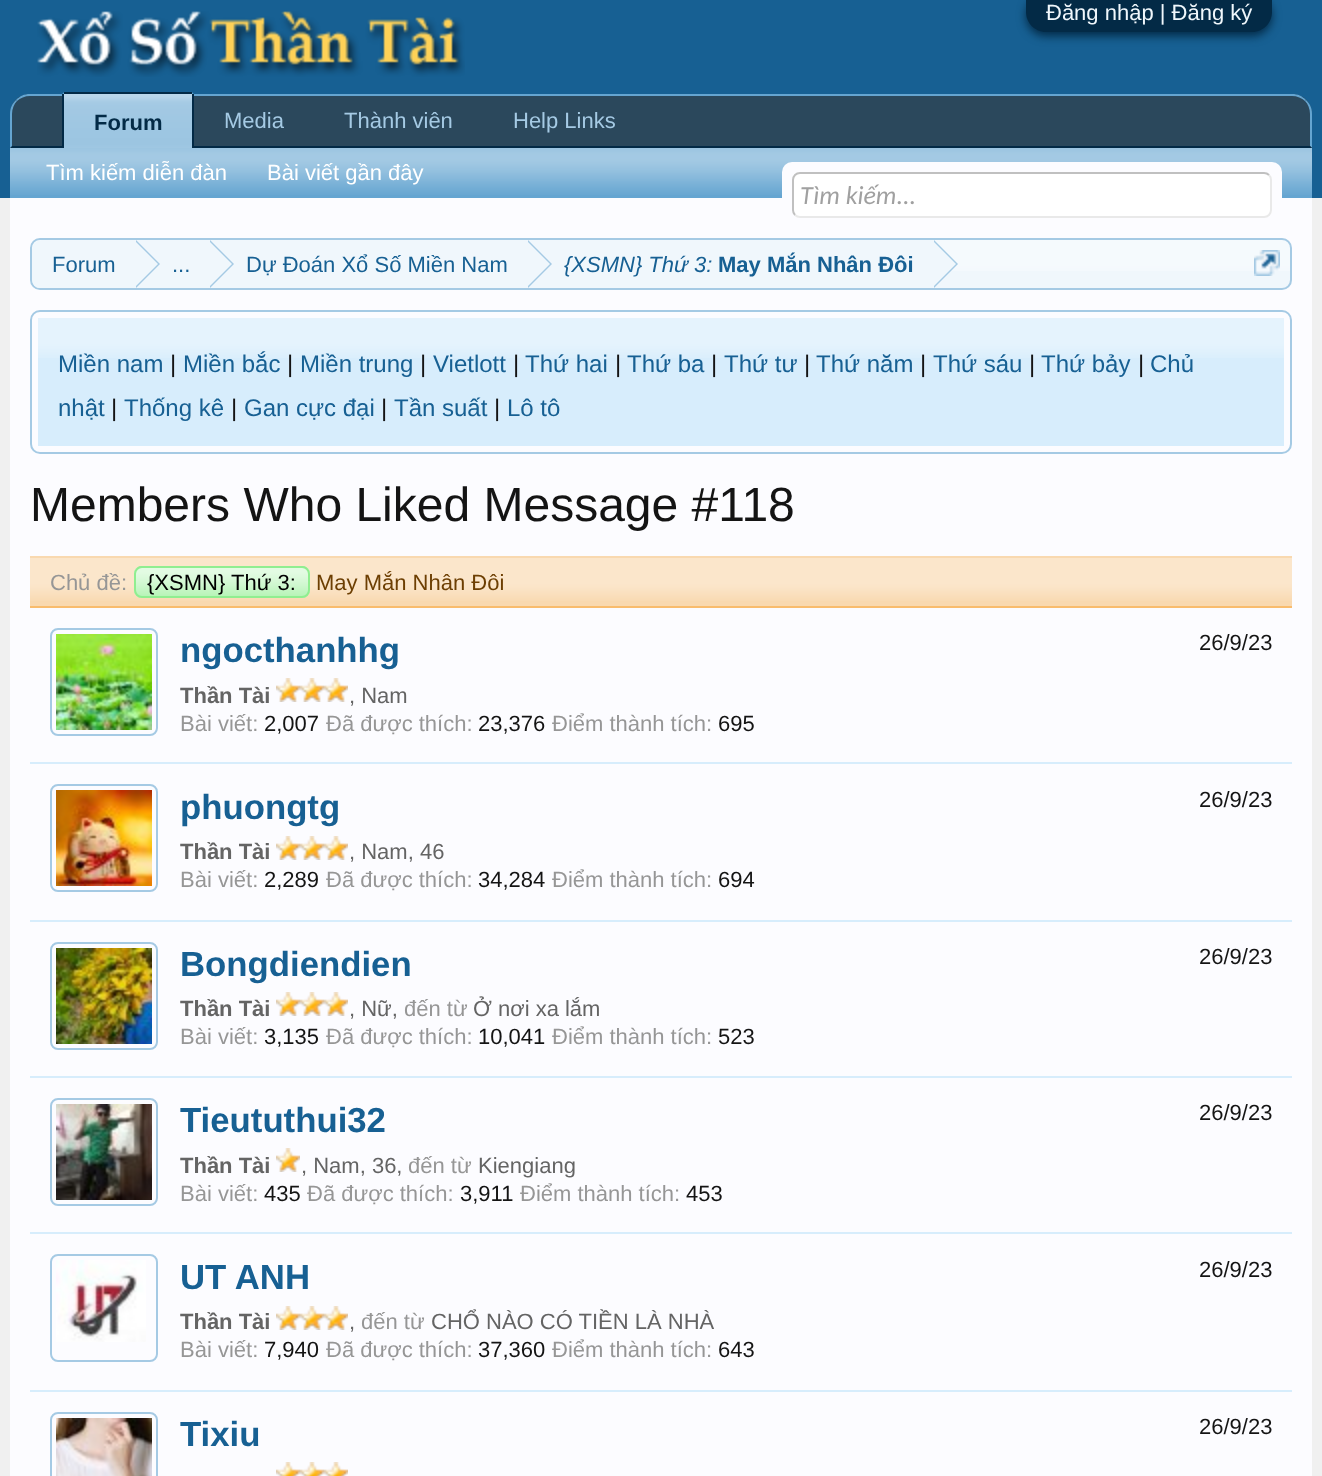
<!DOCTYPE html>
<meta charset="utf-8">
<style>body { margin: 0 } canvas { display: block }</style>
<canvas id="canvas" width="1322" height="1476"></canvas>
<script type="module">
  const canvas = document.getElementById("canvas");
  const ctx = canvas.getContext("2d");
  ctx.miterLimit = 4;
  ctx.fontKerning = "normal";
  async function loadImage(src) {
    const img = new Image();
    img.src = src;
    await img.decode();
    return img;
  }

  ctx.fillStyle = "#f0f0f0";
  ctx.fillRect(0, 0, 1322, 1476);
  ctx.fillStyle = "#176093";
  ctx.fillRect(0, 0, 1322, 198);
  ctx.fillStyle = "#032a46";
  ctx.filter = "blur(5px)";
  ctx.beginPath();
  ctx.roundRect(1026, -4, 246, 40, 20);
  ctx.fill();
  ctx.filter = "none";
  ctx.beginPath();
  ctx.moveTo(1026, -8);
  ctx.lineTo(1272, -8);
  ctx.lineTo(1272, 12);
  ctx.bezierCurveTo(1272, 23, 1263, 32, 1252, 32);
  ctx.lineTo(1046, 32);
  ctx.bezierCurveTo(1035, 32, 1026, 23, 1026, 12);
  ctx.closePath();
  ctx.fill();
  ctx.font = "22px Liberation Sans";
  ctx.fillStyle = "#f0f7fc";
  ctx.fillText("Đăng nhập | Đăng ký", 1046, 20);
  ctx.drawImage(await loadImage("img1.png"), 37, 11, 428, 66);
  ctx.fillStyle = "#2b485c";
  ctx.beginPath();
  ctx.roundRect(10, 94, 1302, 54, [20, 20, 0, 0]);
  ctx.fill();
  ctx.fillStyle = "#65a5d1";
  ctx.beginPath();
  ctx.moveTo(30, 94);
  ctx.bezierCurveTo(24, 94, 20, 96, 16, 100);
  ctx.lineTo(17, 101);
  ctx.bezierCurveTo(20, 98, 25, 96, 30, 96);
  ctx.lineTo(1292, 96);
  ctx.bezierCurveTo(1297, 96, 1302, 98, 1305, 101);
  ctx.lineTo(1306, 100);
  ctx.bezierCurveTo(1302, 96, 1298, 94, 1292, 94);
  ctx.closePath();
  ctx.fill();
  ctx.beginPath();
  ctx.moveTo(1312, 148);
  ctx.lineTo(1312, 114);
  ctx.bezierCurveTo(1312, 108, 1310, 104, 1306, 100);
  ctx.lineTo(1305, 101);
  ctx.bezierCurveTo(1308, 104, 1310, 109, 1310, 114);
  ctx.lineTo(1310, 146);
  ctx.closePath();
  ctx.fill();
  ctx.fillStyle = "#032a46";
  ctx.beginPath();
  ctx.moveTo(1312, 148);
  ctx.lineTo(1310, 146);
  ctx.lineTo(12, 146);
  ctx.lineTo(10, 148);
  ctx.closePath();
  ctx.fill();
  ctx.fillStyle = "#65a5d1";
  ctx.beginPath();
  ctx.moveTo(10, 148);
  ctx.lineTo(12, 146);
  ctx.lineTo(12, 114);
  ctx.bezierCurveTo(12, 109, 14, 104, 17, 101);
  ctx.lineTo(16, 100);
  ctx.bezierCurveTo(12, 104, 10, 108, 10, 114);
  ctx.closePath();
  ctx.fill();
  ctx.fillStyle = "#a5cae4";
  ctx.fillText("Media", 224, 128);
  ctx.fillText("Thành viên", 344, 128);
  ctx.fillText("Help Links", 513, 128);
  ctx.fillStyle = "#65a5d1";
  ctx.beginPath();
  ctx.roundRect(62, 92, 132, 56, [4, 4, 0, 0]);
  ctx.fill();
  ctx.drawImage(await loadImage("img2.png"), 64, 94, 128, 54);
  ctx.fillStyle = "#032a46";
  ctx.fillRect(64, 92, 128, 2);
  ctx.fillRect(192, 94, 2, 54);
  ctx.fillRect(62, 94, 2, 54);
  ctx.font = "bold 22px Liberation Sans";
  ctx.fillText("Forum", 94, 130);
  ctx.fillStyle = "#65a5d1";
  ctx.fillRect(10, 148, 1302, 50);
  ctx.drawImage(await loadImage("img3.png"), 10, 148, 1302, 47);
  ctx.font = "22px Liberation Sans";
  ctx.fillStyle = "#ffffff";
  ctx.fillText("Tìm kiếm diễn đàn", 46, 180);
  ctx.fillText("Bài viết gần đây", 267, 180);
  ctx.fillStyle = "#fcfcff";
  ctx.fillRect(10, 198, 1302, 1278);
  ctx.beginPath();
  ctx.roundRect(782, 162, 500, 56, 10);
  ctx.fill();
  ctx.fillStyle = "#ffffff";
  ctx.beginPath();
  ctx.roundRect(792, 172, 480, 46, 8);
  ctx.fill();
  ctx.beginPath();
  ctx.moveTo(1269, 175);
  ctx.bezierCurveTo(1270.5, 176.5, 1271, 178, 1271, 180);
  ctx.lineTo(1271, 210);
  ctx.bezierCurveTo(1271, 212, 1270.5, 213.5, 1269, 215);
  ctx.bezierCurveTo(1267.5, 216.5, 1266, 217, 1264, 217);
  ctx.lineTo(800, 217);
  ctx.bezierCurveTo(798, 217, 796.5, 216.5, 795, 215);
  ctx.strokeStyle = "#e9e9e9";
  ctx.lineWidth = 2;
  ctx.stroke();
  ctx.beginPath();
  ctx.moveTo(795, 215);
  ctx.bezierCurveTo(793.5, 213.5, 793, 212, 793, 210);
  ctx.lineTo(793, 180);
  ctx.bezierCurveTo(793, 178, 793.5, 176.5, 795, 175);
  ctx.bezierCurveTo(796.5, 173.5, 798, 173, 800, 173);
  ctx.lineTo(1264, 173);
  ctx.bezierCurveTo(1266, 173, 1267.5, 173.5, 1269, 175);
  ctx.strokeStyle = "#c0c0c0";
  ctx.stroke();
  ctx.font = "italic 26px Carlito";
  ctx.fillStyle = "#a0a0a0";
  ctx.fillText("Tìm kiếm...", 800, 204);
  ctx.fillStyle = "#f0f7fc";
  ctx.beginPath();
  ctx.roundRect(30, 238, 1262, 52, 10);
  ctx.fill();
  ctx.drawImage(await loadImage("img4.png"), 30, 240, 1262, 31);
  ctx.beginPath();
  ctx.roundRect(31, 239, 1260, 50, 9);
  ctx.strokeStyle = "#a5cae4";
  ctx.stroke();
  ctx.save();
  ctx.beginPath();
  ctx.roundRect(32, 240, 1258, 48, 8);
  ctx.clip();
  ctx.beginPath();
  ctx.roundRect(32, 240, 104, 50, [10, 0, 0, 10]);
  ctx.fill();
  ctx.restore();
  ctx.font = "22px Liberation Sans";
  ctx.fillStyle = "#176093";
  ctx.fillText("Forum", 52, 272);
  ctx.fillStyle = "#f0f7fc";
  ctx.fillRect(136, 240, 798, 31);
  ctx.fillStyle = "#a5cae4";
  ctx.beginPath();
  ctx.moveTo(136, 288);
  ctx.lineTo(136, 240);
  ctx.lineTo(160, 264);
  ctx.closePath();
  ctx.fill();
  ctx.fillStyle = "#f0f7fc";
  ctx.beginPath();
  ctx.moveTo(134, 288);
  ctx.lineTo(134, 240);
  ctx.lineTo(158, 264);
  ctx.closePath();
  ctx.fill();
  ctx.fillStyle = "#176093";
  ctx.fillText("...", 172, 272);
  ctx.fillStyle = "#a5cae4";
  ctx.beginPath();
  ctx.moveTo(210, 288);
  ctx.lineTo(210, 240);
  ctx.lineTo(234, 264);
  ctx.closePath();
  ctx.fill();
  ctx.fillStyle = "#f0f7fc";
  ctx.beginPath();
  ctx.moveTo(208, 288);
  ctx.lineTo(208, 240);
  ctx.lineTo(232, 264);
  ctx.closePath();
  ctx.fill();
  ctx.fillStyle = "#176093";
  ctx.fillText("Dự Đoán Xổ Số Miền Nam", 246, 272);
  ctx.fillStyle = "#a5cae4";
  ctx.beginPath();
  ctx.moveTo(528, 288);
  ctx.lineTo(528, 240);
  ctx.lineTo(552, 264);
  ctx.closePath();
  ctx.fill();
  ctx.fillStyle = "#f0f7fc";
  ctx.beginPath();
  ctx.moveTo(526, 288);
  ctx.lineTo(526, 240);
  ctx.lineTo(550, 264);
  ctx.closePath();
  ctx.fill();
  ctx.font = "italic 22px Liberation Sans";
  ctx.fillStyle = "#176093";
  ctx.fillText("{XSMN} Thứ 3:", 564, 272);
  ctx.font = "bold 22px Liberation Sans";
  ctx.fillText("May Mắn Nhân Đôi", 718, 272);
  ctx.fillStyle = "#a5cae4";
  ctx.beginPath();
  ctx.moveTo(934, 288);
  ctx.lineTo(934, 240);
  ctx.lineTo(958, 264);
  ctx.closePath();
  ctx.fill();
  ctx.fillStyle = "#f0f7fc";
  ctx.beginPath();
  ctx.moveTo(932, 288);
  ctx.lineTo(932, 240);
  ctx.lineTo(956, 264);
  ctx.closePath();
  ctx.fill();
  ctx.drawImage(await loadImage("img5.png"), 1254, 250, 26, 26);
  ctx.beginPath();
  ctx.roundRect(31, 311, 1260, 142, 9);
  ctx.stroke();
  ctx.fillStyle = "#d7edfc";
  ctx.fillRect(38, 318, 1246, 128);
  ctx.drawImage(await loadImage("img6.png"), 38, 318, 1246, 40);
  ctx.font = "24px Liberation Sans";
  ctx.fillStyle = "#176093";
  ctx.fillText("Miền nam", 58, 372);
  ctx.fillStyle = "#141414";
  ctx.fillText("|", 170, 372);
  ctx.fillStyle = "#176093";
  ctx.fillText("Miền bắc", 183, 372);
  ctx.fillStyle = "#141414";
  ctx.fillText("|", 287, 372);
  ctx.fillStyle = "#176093";
  ctx.fillText("Miền trung", 300, 372);
  ctx.fillStyle = "#141414";
  ctx.fillText("|", 420, 372);
  ctx.fillStyle = "#176093";
  ctx.fillText("Vietlott", 433, 372);
  ctx.fillStyle = "#141414";
  ctx.fillText("|", 513, 372);
  ctx.fillStyle = "#176093";
  ctx.fillText("Thứ hai", 525, 372);
  ctx.fillStyle = "#141414";
  ctx.fillText("|", 615, 372);
  ctx.fillStyle = "#176093";
  ctx.fillText("Thứ ba", 627, 372);
  ctx.fillStyle = "#141414";
  ctx.fillText("|", 711, 372);
  ctx.fillStyle = "#176093";
  ctx.fillText("Thứ tư", 724, 372);
  ctx.fillStyle = "#141414";
  ctx.fillText("|", 804, 372);
  ctx.fillStyle = "#176093";
  ctx.fillText("Thứ năm", 816, 372);
  ctx.fillStyle = "#141414";
  ctx.fillText("|", 920, 372);
  ctx.fillStyle = "#176093";
  ctx.fillText("Thứ sáu", 933, 372);
  ctx.fillStyle = "#141414";
  ctx.fillText("|", 1029, 372);
  ctx.fillStyle = "#176093";
  ctx.fillText("Thứ bảy", 1041, 372);
  ctx.fillStyle = "#141414";
  ctx.fillText("|", 1138, 372);
  ctx.fillStyle = "#176093";
  ctx.fillText("Chủ", 1150, 372);
  ctx.fillText("nhật", 58, 416);
  ctx.fillStyle = "#141414";
  ctx.fillText("|", 111, 416);
  ctx.fillStyle = "#176093";
  ctx.fillText("Thống kê", 124, 416);
  ctx.fillStyle = "#141414";
  ctx.fillText("|", 231, 416);
  ctx.fillStyle = "#176093";
  ctx.fillText("Gan cực đại", 244, 416);
  ctx.fillStyle = "#141414";
  ctx.fillText("|", 381, 416);
  ctx.fillStyle = "#176093";
  ctx.fillText("Tần suất", 394, 416);
  ctx.fillStyle = "#141414";
  ctx.fillText("|", 494, 416);
  ctx.fillStyle = "#176093";
  ctx.fillText("Lô tô", 507, 416);
  ctx.font = "48px Liberation Sans";
  ctx.fillStyle = "#141414";
  ctx.fillText("Members Who Liked Message #118", 30, 521);
  ctx.fillStyle = "#f9d9b0";
  ctx.fillRect(30, 556, 1262, 50);
  ctx.drawImage(await loadImage("img7.png"), 30, 558, 1262, 43);
  ctx.fillStyle = "#f9bc6d";
  ctx.fillRect(30, 606, 1262, 2);
  ctx.font = "22px Liberation Sans";
  ctx.fillStyle = "#969696";
  ctx.fillText("Chủ đề:", 50, 590);
  ctx.fillStyle = "#90ee90";
  ctx.beginPath();
  ctx.roundRect(134, 566, 176, 32, 8);
  ctx.fill();
  ctx.drawImage(await loadImage("img8.png"), 134, 568, 176, 30);
  ctx.beginPath();
  ctx.roundRect(135, 567, 174, 30, 7);
  ctx.strokeStyle = "#90ee90";
  ctx.stroke();
  ctx.fillStyle = "#000000";
  ctx.fillText("{XSMN} Thứ 3:", 147, 590);
  ctx.fillStyle = "#6d3f03";
  ctx.fillText("May Mắn Nhân Đôi", 316, 590);
  ctx.fillStyle = "#d7edfc";
  ctx.fillRect(30, 762, 1262, 2);
  ctx.drawImage(await loadImage("img9.png"), 56, 634, 96, 96);
  ctx.beginPath();
  ctx.roundRect(51, 629, 106, 106, 7);
  ctx.strokeStyle = "#a5cae4";
  ctx.stroke();
  ctx.font = "bold 34.75px Liberation Sans";
  ctx.fillStyle = "#176093";
  ctx.fillText("ngocthanhhg", 180, 662);
  ctx.font = "bold 22px Liberation Sans";
  ctx.fillStyle = "#646464";
  ctx.fillText("Thần Tài", 180, 703);
  ctx.drawImage(await loadImage("img10.png"), 276, 678, 24, 24);
  ctx.drawImage(await loadImage("img10.png"), 300, 678, 24, 24);
  ctx.drawImage(await loadImage("img10.png"), 324, 678, 24, 24);
  ctx.font = "22px Liberation Sans";
  ctx.fillText(", Nam", 349, 703);
  ctx.fillStyle = "#969696";
  ctx.fillText("Bài viết:", 180, 731);
  ctx.fillStyle = "#141414";
  ctx.fillText("2,007", 264, 731);
  ctx.fillStyle = "#969696";
  ctx.fillText("Đã được thích:", 326, 731);
  ctx.fillStyle = "#141414";
  ctx.fillText("23,376", 478, 731);
  ctx.fillStyle = "#969696";
  ctx.fillText("Điểm thành tích:", 552, 731);
  ctx.fillStyle = "#141414";
  ctx.fillText("695", 718, 731);
  ctx.fillText("26/9/23", 1199, 650);
  ctx.fillStyle = "#d7edfc";
  ctx.fillRect(30, 920, 1262, 2);
  ctx.drawImage(await loadImage("img11.png"), 56, 790, 96, 96);
  ctx.beginPath();
  ctx.roundRect(51, 785, 106, 106, 7);
  ctx.stroke();
  ctx.font = "bold 34.75px Liberation Sans";
  ctx.fillStyle = "#176093";
  ctx.fillText("phuongtg", 180, 819);
  ctx.font = "bold 22px Liberation Sans";
  ctx.fillStyle = "#646464";
  ctx.fillText("Thần Tài", 180, 859);
  ctx.drawImage(await loadImage("img10.png"), 276, 836, 24, 24);
  ctx.drawImage(await loadImage("img10.png"), 300, 836, 24, 24);
  ctx.drawImage(await loadImage("img10.png"), 324, 836, 24, 24);
  ctx.font = "22px Liberation Sans";
  ctx.fillText(", Nam, 46", 349, 859);
  ctx.fillStyle = "#969696";
  ctx.fillText("Bài viết:", 180, 887);
  ctx.fillStyle = "#141414";
  ctx.fillText("2,289", 264, 887);
  ctx.fillStyle = "#969696";
  ctx.fillText("Đã được thích:", 326, 887);
  ctx.fillStyle = "#141414";
  ctx.fillText("34,284", 478, 887);
  ctx.fillStyle = "#969696";
  ctx.fillText("Điểm thành tích:", 552, 887);
  ctx.fillStyle = "#141414";
  ctx.fillText("694", 718, 887);
  ctx.fillText("26/9/23", 1199, 807);
  ctx.fillStyle = "#d7edfc";
  ctx.fillRect(30, 1076, 1262, 2);
  ctx.drawImage(await loadImage("img12.png"), 56, 948, 96, 96);
  ctx.beginPath();
  ctx.roundRect(51, 943, 106, 106, 7);
  ctx.stroke();
  ctx.font = "bold 34.75px Liberation Sans";
  ctx.fillStyle = "#176093";
  ctx.fillText("Bongdiendien", 180, 976);
  ctx.font = "bold 22px Liberation Sans";
  ctx.fillStyle = "#646464";
  ctx.fillText("Thần Tài", 180, 1016);
  ctx.drawImage(await loadImage("img10.png"), 276, 992, 24, 24);
  ctx.drawImage(await loadImage("img10.png"), 300, 992, 24, 24);
  ctx.drawImage(await loadImage("img10.png"), 324, 992, 24, 24);
  ctx.font = "22px Liberation Sans";
  ctx.fillText(", Nữ,", 349, 1016);
  ctx.fillStyle = "#969696";
  ctx.fillText("đến từ", 404, 1016);
  ctx.fillStyle = "#646464";
  ctx.fillText("Ở nơi xa lắm", 473, 1016);
  ctx.fillStyle = "#969696";
  ctx.fillText("Bài viết:", 180, 1044);
  ctx.fillStyle = "#141414";
  ctx.fillText("3,135", 264, 1044);
  ctx.fillStyle = "#969696";
  ctx.fillText("Đã được thích:", 326, 1044);
  ctx.fillStyle = "#141414";
  ctx.fillText("10,041", 478, 1044);
  ctx.fillStyle = "#969696";
  ctx.fillText("Điểm thành tích:", 552, 1044);
  ctx.fillStyle = "#141414";
  ctx.fillText("523", 718, 1044);
  ctx.fillText("26/9/23", 1199, 964);
  ctx.fillStyle = "#d7edfc";
  ctx.fillRect(30, 1232, 1262, 2);
  ctx.drawImage(await loadImage("img13.png"), 56, 1104, 96, 96);
  ctx.beginPath();
  ctx.roundRect(51, 1099, 106, 106, 7);
  ctx.stroke();
  ctx.font = "bold 34.75px Liberation Sans";
  ctx.fillStyle = "#176093";
  ctx.fillText("Tieututhui32", 180, 1132);
  ctx.font = "bold 22px Liberation Sans";
  ctx.fillStyle = "#646464";
  ctx.fillText("Thần Tài", 180, 1173);
  ctx.drawImage(await loadImage("img10.png"), 276, 1148, 24, 24);
  ctx.font = "22px Liberation Sans";
  ctx.fillText(", Nam, 36,", 301, 1173);
  ctx.fillStyle = "#969696";
  ctx.fillText("đến từ", 408, 1173);
  ctx.fillStyle = "#646464";
  ctx.fillText("Kiengiang", 478, 1173);
  ctx.fillStyle = "#969696";
  ctx.fillText("Bài viết:", 180, 1201);
  ctx.fillStyle = "#141414";
  ctx.fillText("435", 264, 1201);
  ctx.fillStyle = "#969696";
  ctx.fillText("Đã được thích:", 307, 1201);
  ctx.fillStyle = "#141414";
  ctx.fillText("3,911", 460, 1201);
  ctx.fillStyle = "#969696";
  ctx.fillText("Điểm thành tích:", 520, 1201);
  ctx.fillStyle = "#141414";
  ctx.fillText("453", 686, 1201);
  ctx.fillText("26/9/23", 1199, 1120);
  ctx.fillStyle = "#d7edfc";
  ctx.fillRect(30, 1390, 1262, 2);
  ctx.drawImage(await loadImage("img14.png"), 56, 1260, 90, 82);
  ctx.beginPath();
  ctx.roundRect(51, 1255, 106, 106, 7);
  ctx.stroke();
  ctx.font = "bold 34.75px Liberation Sans";
  ctx.fillStyle = "#176093";
  ctx.fillText("UT ANH", 180, 1289);
  ctx.font = "bold 22px Liberation Sans";
  ctx.fillStyle = "#646464";
  ctx.fillText("Thần Tài", 180, 1329);
  ctx.drawImage(await loadImage("img10.png"), 276, 1306, 24, 24);
  ctx.drawImage(await loadImage("img10.png"), 300, 1306, 24, 24);
  ctx.drawImage(await loadImage("img10.png"), 324, 1306, 24, 24);
  ctx.font = "22px Liberation Sans";
  ctx.fillText(",", 349, 1329);
  ctx.fillStyle = "#969696";
  ctx.fillText("đến từ", 361, 1329);
  ctx.fillStyle = "#646464";
  ctx.fillText("CHỔ NÀO CÓ TIỀN LÀ NHÀ", 431, 1329);
  ctx.fillStyle = "#969696";
  ctx.fillText("Bài viết:", 180, 1357);
  ctx.fillStyle = "#141414";
  ctx.fillText("7,940", 264, 1357);
  ctx.fillStyle = "#969696";
  ctx.fillText("Đã được thích:", 326, 1357);
  ctx.fillStyle = "#141414";
  ctx.fillText("37,360", 478, 1357);
  ctx.fillStyle = "#969696";
  ctx.fillText("Điểm thành tích:", 552, 1357);
  ctx.fillStyle = "#141414";
  ctx.fillText("643", 718, 1357);
  ctx.fillText("26/9/23", 1199, 1277);
  ctx.drawImage(await loadImage("img15.png"), 56, 1418, 96, 58);
  ctx.beginPath();
  ctx.roundRect(51, 1413, 106, 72, 7);
  ctx.stroke();
  ctx.font = "bold 34.75px Liberation Sans";
  ctx.fillStyle = "#176093";
  ctx.fillText("Tixiu", 180, 1446);
  ctx.drawImage(await loadImage("img16.png"), 276, 1462, 24, 14);
  ctx.drawImage(await loadImage("img16.png"), 300, 1462, 24, 14);
  ctx.drawImage(await loadImage("img16.png"), 324, 1462, 24, 14);
  ctx.font = "22px Liberation Sans";
  ctx.fillStyle = "#141414";
  ctx.fillText("26/9/23", 1199, 1434);
</script>
